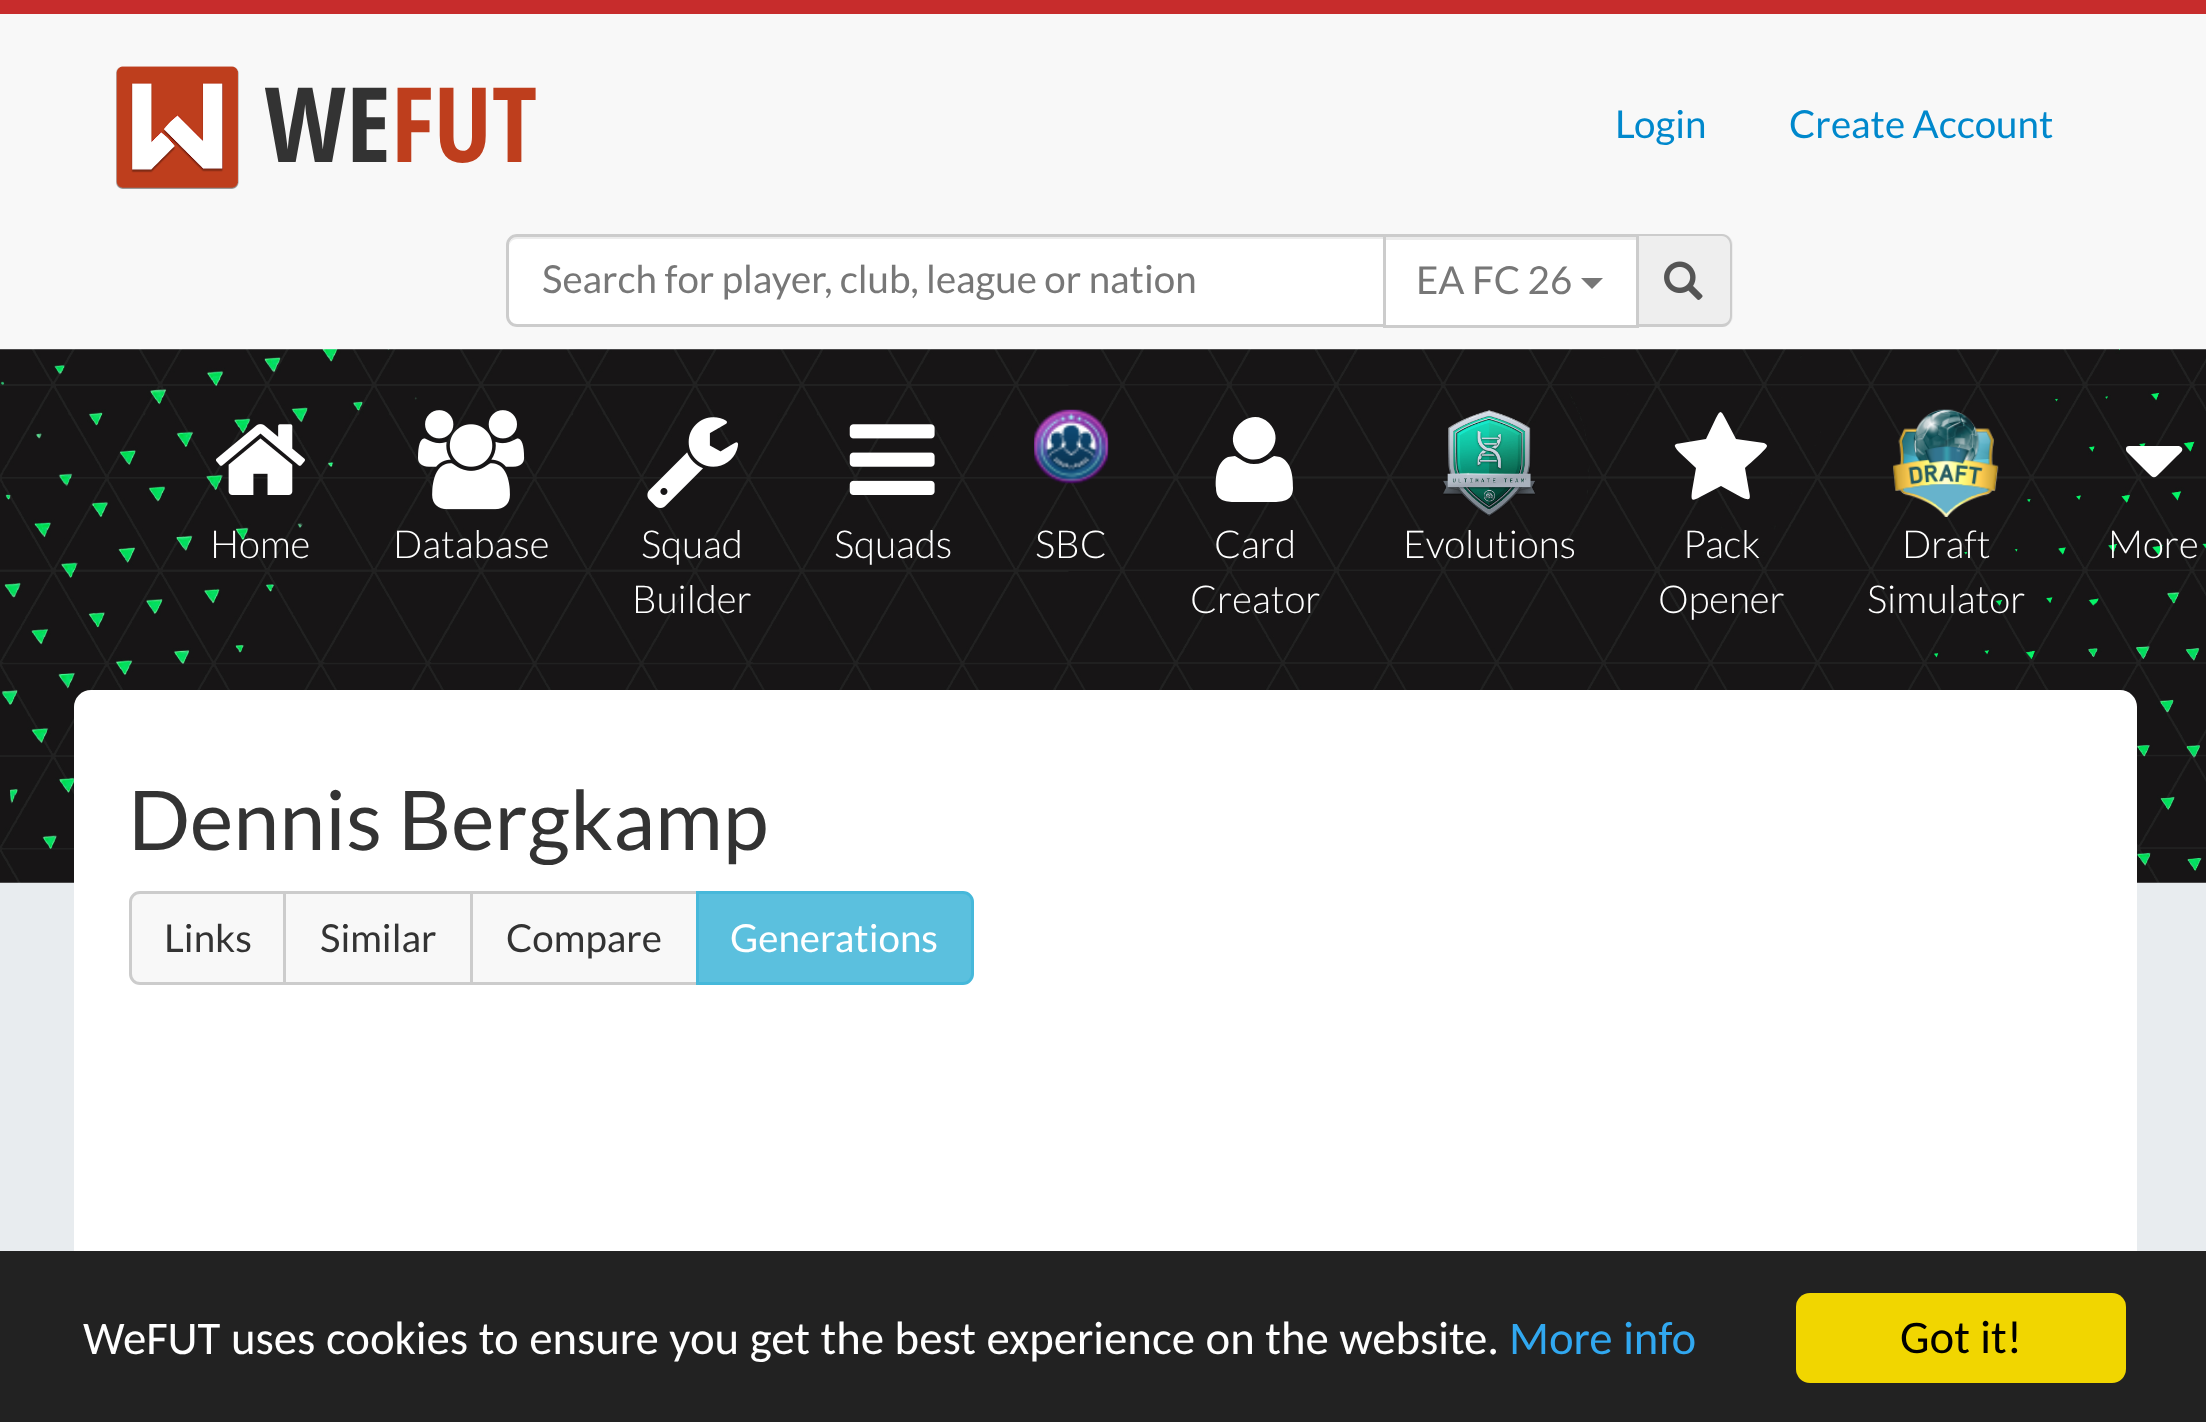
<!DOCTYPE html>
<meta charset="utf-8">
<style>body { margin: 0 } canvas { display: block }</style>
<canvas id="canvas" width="2206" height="1422"></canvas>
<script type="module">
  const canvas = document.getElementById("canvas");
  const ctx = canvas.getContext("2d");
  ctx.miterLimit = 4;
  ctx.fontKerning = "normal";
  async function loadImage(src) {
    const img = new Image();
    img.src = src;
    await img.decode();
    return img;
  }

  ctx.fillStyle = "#ffffff";
  ctx.fillRect(0, 0, 2206, 1422);
  ctx.drawImage(await loadImage("img1.png"), 0, 349, 2206, 902);
  ctx.fillStyle = "#f8f8f8";
  ctx.fillRect(0, 14, 2206, 335);
  ctx.fillStyle = "#c72c2c";
  ctx.fillRect(0, 0, 2206, 14);
  ctx.drawImage(await loadImage("img2.png"), 116, 66, 123, 123);
  ctx.font = "bold 104px Open Sans Condensed";
  ctx.fillStyle = "#333333";
  ctx.fillText("WE", 264, 162);
  ctx.fillStyle = "#be3e1d";
  ctx.fillText("FUT", 391, 162);
  ctx.font = "38.5px Lato";
  ctx.fillStyle = "#0088cc";
  ctx.fillText("Login", 1615, 138);
  ctx.fillText("Create Account", 1789, 138);
  ctx.fillStyle = "#ececec";
  ctx.fillRect(1383, 237, 253, 3);
  ctx.fillStyle = "#eeeeee";
  ctx.beginPath();
  ctx.roundRect(1636, 234, 97, 93, [0, 11, 11, 0]);
  ctx.fill();
  ctx.fillStyle = "#cccccc";
  ctx.beginPath();
  ctx.moveTo(1636, 234);
  ctx.lineTo(1722, 234);
  ctx.bezierCurveTo(1728, 234, 1732, 239, 1732, 245);
  ctx.lineTo(1732, 316);
  ctx.bezierCurveTo(1732, 322, 1728, 327, 1722, 327);
  ctx.lineTo(1636, 327);
  ctx.closePath();
  ctx.moveTo(1636, 236);
  ctx.lineTo(1722, 236);
  ctx.bezierCurveTo(1726, 236, 1730, 240, 1730, 245);
  ctx.lineTo(1730, 316);
  ctx.bezierCurveTo(1730, 321, 1726, 324, 1722, 324);
  ctx.lineTo(1636, 324);
  ctx.closePath();
  ctx.fill("evenodd");
  ctx.fillRect(1383, 234, 256, 3);
  ctx.fillRect(1636, 234, 3, 93);
  ctx.fillRect(1383, 325, 256, 3);
  ctx.fillStyle = "#ffffff";
  ctx.beginPath();
  ctx.roundRect(506, 234, 880, 93, [11, 0, 0, 11]);
  ctx.fill();
  ctx.fillStyle = "#ececec";
  ctx.beginPath();
  ctx.moveTo(517, 239);
  ctx.lineTo(1383, 239);
  ctx.lineTo(1383, 237);
  ctx.lineTo(517, 237);
  ctx.bezierCurveTo(511, 237, 509, 243, 509, 248);
  ctx.bezierCurveTo(509, 243, 512, 239, 517, 239);
  ctx.closePath();
  ctx.fill();
  ctx.beginPath();
  ctx.roundRect(507.5, 235.5, 877, 90, [9.5, 0, 0, 9.5]);
  ctx.strokeStyle = "#cccccc";
  ctx.lineWidth = 3;
  ctx.stroke();
  ctx.fillStyle = "#777777";
  ctx.fillText("Search for player, club, league or nation", 542, 293);
  ctx.fillStyle = "#ffffff";
  ctx.fillRect(1386, 240, 250, 85);
  ctx.fillStyle = "#777777";
  ctx.fillText("EA FC 26", 1416, 294);
  ctx.beginPath();
  ctx.moveTo(1581, 278);
  ctx.lineTo(1603, 278);
  ctx.lineTo(1592, 289);
  ctx.closePath();
  ctx.fill();
  ctx.drawImage(await loadImage("img3.png"), 1664, 261, 39, 39);
  ctx.drawImage(await loadImage("img4.png"), 0, 349, 2206, 534);
  ctx.drawImage(await loadImage("img5.png"), 216, 424, 89, 71);
  ctx.font = "300 38.5px Lato";
  ctx.fillStyle = "#ffffff";
  ctx.fillText("Home", 210, 558);
  ctx.drawImage(await loadImage("img6.png"), 418, 410, 107, 100);
  ctx.fillText("Database", 393, 558);
  ctx.drawImage(await loadImage("img7.png"), 647, 417, 92, 91);
  ctx.fillText("Squad", 641, 558);
  ctx.fillText("Builder", 632, 613);
  ctx.drawImage(await loadImage("img8.png"), 849, 424, 86, 71);
  ctx.fillText("Squads", 834, 558);
  ctx.drawImage(await loadImage("img9.png"), 1034, 409, 75, 75);
  ctx.fillText("SBC", 1035, 558);
  ctx.beginPath();
  ctx.moveTo(1293, 488);
  ctx.bezierCurveTo(1293, 502, 1281, 502, 1270, 502);
  ctx.lineTo(1238, 502);
  ctx.bezierCurveTo(1227, 502, 1216, 502, 1216, 488);
  ctx.bezierCurveTo(1215, 477, 1217, 462, 1228, 457);
  ctx.lineTo(1235, 456);
  ctx.lineTo(1240, 459);
  ctx.bezierCurveTo(1244, 462, 1249, 464, 1254, 464);
  ctx.bezierCurveTo(1260, 464, 1265, 462, 1269, 459);
  ctx.lineTo(1274, 456);
  ctx.lineTo(1280, 457);
  ctx.bezierCurveTo(1292, 462, 1293, 477, 1293, 488);
  ctx.closePath();
  ctx.moveTo(1269, 423);
  ctx.bezierCurveTo(1289, 443, 1259, 473, 1239, 453);
  ctx.bezierCurveTo(1220, 434, 1250, 404, 1269, 423);
  ctx.closePath();
  ctx.fill();
  ctx.fillText("Card", 1214, 558);
  ctx.fillText("Creator", 1190, 613);
  ctx.drawImage(await loadImage("img10.png"), 1443, 410, 92, 106);
  ctx.fillText("Evolutions", 1403, 558);
  ctx.beginPath();
  ctx.moveTo(1767, 446);
  ctx.bezierCurveTo(1767, 449, 1748, 465, 1745, 468);
  ctx.lineTo(1749, 491);
  ctx.bezierCurveTo(1751, 500, 1750, 501, 1741, 497);
  ctx.lineTo(1721, 486);
  ctx.lineTo(1700, 497);
  ctx.bezierCurveTo(1691, 502, 1691, 500, 1692, 491);
  ctx.lineTo(1696, 468);
  ctx.lineTo(1679, 452);
  ctx.bezierCurveTo(1673, 445, 1673, 444, 1682, 443);
  ctx.lineTo(1706, 439);
  ctx.lineTo(1716, 418);
  ctx.bezierCurveTo(1720, 410, 1721, 410, 1725, 418);
  ctx.lineTo(1736, 439);
  ctx.lineTo(1764, 443);
  ctx.bezierCurveTo(1766, 444, 1767, 445, 1767, 446);
  ctx.closePath();
  ctx.fill();
  ctx.fillText("Pack", 1683, 558);
  ctx.fillText("Opener", 1658, 613);
  ctx.drawImage(await loadImage("img11.png"), 1893, 409, 106, 108);
  ctx.fillText("Draft", 1902, 558);
  ctx.fillText("Simulator", 1867, 613);
  ctx.beginPath();
  ctx.moveTo(2181, 447);
  ctx.bezierCurveTo(2185, 450, 2179, 454, 2177, 456);
  ctx.lineTo(2161, 472);
  ctx.bezierCurveTo(2154, 479, 2154, 479, 2147, 472);
  ctx.lineTo(2127, 452);
  ctx.bezierCurveTo(2125, 449, 2126, 446, 2129, 446);
  ctx.lineTo(2179, 446);
  ctx.closePath();
  ctx.fill();
  ctx.fillText("More", 2108, 558);
  ctx.beginPath();
  ctx.roundRect(74, 690, 2063, 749, 17);
  ctx.fill();
  ctx.font = "82.5px Lato";
  ctx.fillStyle = "#333333";
  ctx.fillText("Dennis Bergkamp", 128, 850);
  ctx.fillStyle = "#f8f8f8";
  ctx.beginPath();
  ctx.roundRect(130.5, 892.5, 154, 91, [9.5, 0, 0, 9.5]);
  ctx.fill();
  ctx.stroke();
  ctx.font = "38.5px Lato";
  ctx.fillStyle = "#333333";
  ctx.fillText("Links", 164, 952);
  ctx.fillStyle = "#f8f8f8";
  ctx.beginPath();
  ctx.rect(284.5, 892.5, 187, 91);
  ctx.fill();
  ctx.stroke();
  ctx.fillStyle = "#333333";
  ctx.fillText("Similar", 320, 952);
  ctx.fillStyle = "#f8f8f8";
  ctx.beginPath();
  ctx.rect(471.5, 892.5, 226, 91);
  ctx.fill();
  ctx.stroke();
  ctx.fillStyle = "#333333";
  ctx.fillText("Compare", 506, 952);
  ctx.fillStyle = "#5bc0de";
  ctx.beginPath();
  ctx.roundRect(697.5, 892.5, 275, 91, [0, 9.5, 9.5, 0]);
  ctx.fill();
  ctx.strokeStyle = "#46b8da";
  ctx.stroke();
  ctx.fillStyle = "#ffffff";
  ctx.fillText("Generations", 730, 952);
  ctx.fillStyle = "#222222";
  ctx.fillRect(0, 1251, 2206, 171);
  ctx.font = "46.75px Carlito";
  ctx.fillStyle = "#ffffff";
  ctx.fillText("WeFUT uses cookies to ensure you get the best experience on the website.", 83, 1354);
  ctx.fillStyle = "#31a8f0";
  ctx.fillText("More info", 1509, 1354);
  ctx.fillStyle = "#f1d600";
  ctx.beginPath();
  ctx.roundRect(1796, 1293, 330, 90, 14);
  ctx.fill();
  ctx.fillStyle = "#000000";
  ctx.fillText("Got it!", 1900, 1353);
</script>
